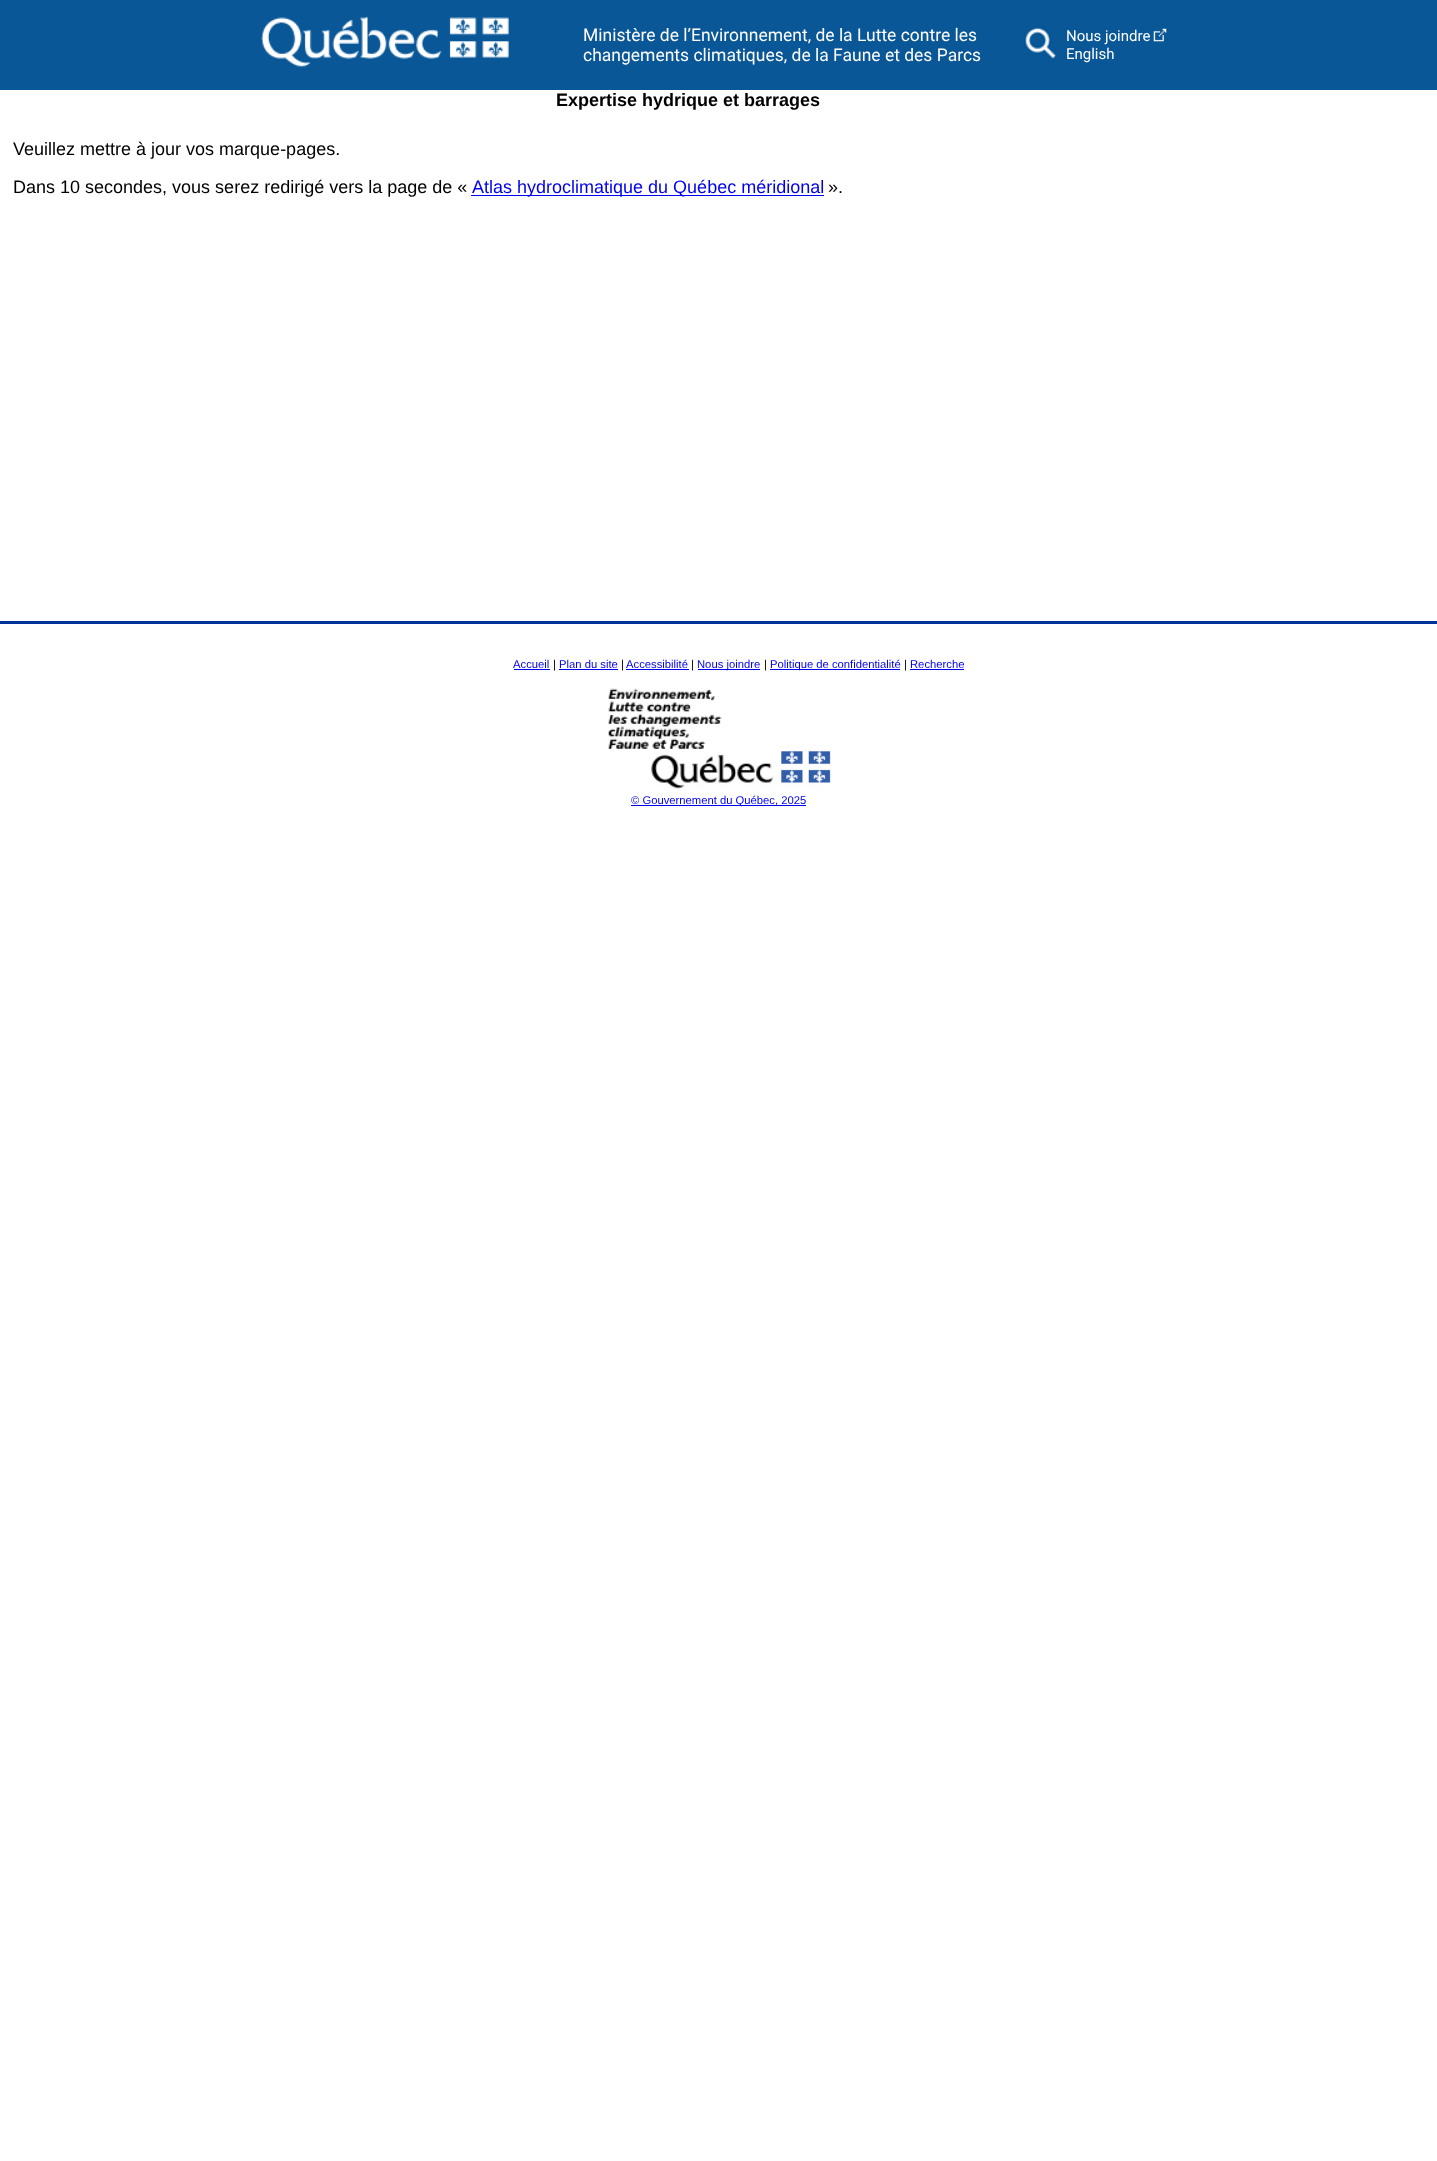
<!DOCTYPE html>
<meta charset="utf-8">
<style>body { margin: 0 } canvas { display: block }</style>
<canvas id="canvas" width="1437" height="2161"></canvas>
<script type="module">
  const canvas = document.getElementById("canvas");
  const ctx = canvas.getContext("2d");
  ctx.miterLimit = 4;
  ctx.fontKerning = "normal";
  async function loadImage(src) {
    const img = new Image();
    img.src = src;
    await img.decode();
    return img;
  }

  ctx.fillStyle = "#ffffff";
  ctx.fillRect(0, 0, 1437, 2161);
  ctx.fillStyle = "#095797";
  ctx.fillRect(0, 0, 1437, 90);
  ctx.drawImage(await loadImage("img1.png"), 261, 16, 248, 51);
  ctx.font = "17.5px Roboto";
  ctx.fillStyle = "#ffffff";
  ctx.fillText("Ministère de l’Environnement, de la Lutte contre les", 583, 41);
  ctx.fillText("changements climatiques, de la Faune et des Parcs", 583, 61);
  ctx.drawImage(await loadImage("img2.png"), 1024, 27, 32, 33);
  ctx.font = "15px Roboto";
  ctx.fillText("Nous joindre", 1066, 41);
  ctx.drawImage(await loadImage("img3.png"), 1153, 28, 14, 14);
  ctx.fillText("English", 1066, 59);
  ctx.font = "bold 18px Liberation Sans";
  ctx.fillStyle = "#000000";
  ctx.fillText("Expertise hydrique et barrages", 556, 106);
  ctx.font = "18px Liberation Sans";
  ctx.fillText("Veuillez mettre à jour vos marque-pages.", 13, 155);
  ctx.fillText("Dans 10 secondes, vous serez redirigé vers la page de «", 13, 193);
  ctx.fillStyle = "#0000ee";
  ctx.fillRect(471, 195, 353, 1);
  ctx.fillText("Atlas hydroclimatique du Québec méridional", 472, 193);
  ctx.fillStyle = "#000000";
  ctx.fillText("».", 828, 193);
  ctx.fillStyle = "#003399";
  ctx.fillRect(0, 621, 1437, 3);
  ctx.font = "11.25px Liberation Sans";
  ctx.fillStyle = "#0000ee";
  ctx.fillText("Accueil", 513, 668);
  ctx.fillRect(514, 669, 36, 1);
  ctx.fillStyle = "#000000";
  ctx.fillText("|", 553, 668);
  ctx.fillStyle = "#0000ee";
  ctx.fillText("Plan du site", 559, 668);
  ctx.fillRect(559, 669, 59, 1);
  ctx.fillStyle = "#000000";
  ctx.fillText("|", 621, 668);
  ctx.fillStyle = "#0000ee";
  ctx.fillText("Accessibilité", 626, 668);
  ctx.fillRect(626, 669, 63, 1);
  ctx.fillStyle = "#000000";
  ctx.fillText("|", 691, 668);
  ctx.fillStyle = "#0000ee";
  ctx.fillRect(698, 669, 62, 1);
  ctx.fillText("Nous joindre", 697, 668);
  ctx.fillStyle = "#000000";
  ctx.fillText("|", 764, 668);
  ctx.fillStyle = "#0000ee";
  ctx.fillRect(770, 669, 130, 1);
  ctx.fillText("Politique de confidentialité", 770, 668);
  ctx.fillStyle = "#000000";
  ctx.fillText("|", 904, 668);
  ctx.fillStyle = "#0000ee";
  ctx.fillText("Recherche", 910, 668);
  ctx.fillRect(910, 669, 54, 1);
  ctx.drawImage(await loadImage("img4.png"), 608, 688, 223, 101);
  ctx.fillRect(631, 805, 175, 1);
  ctx.fillText("© Gouvernement du Québec, 2025", 631, 804);
</script>
